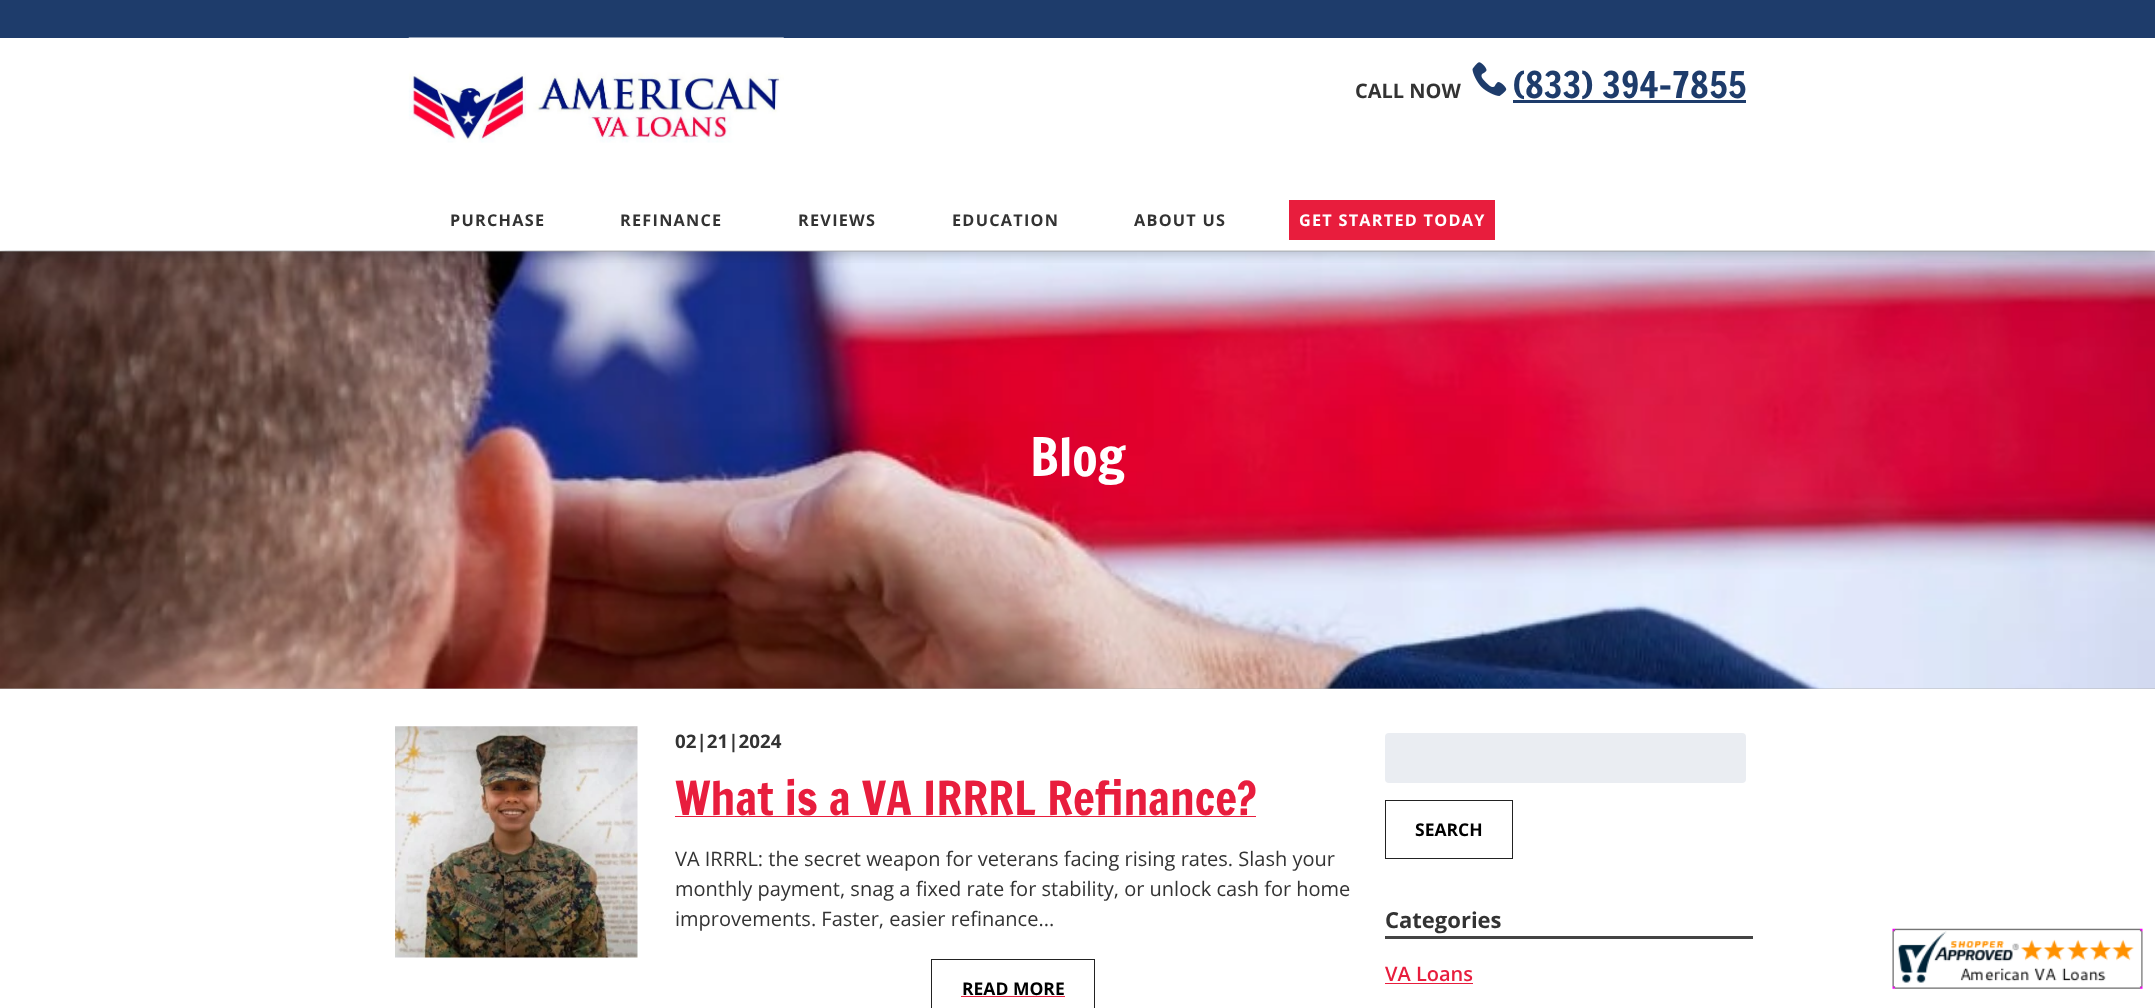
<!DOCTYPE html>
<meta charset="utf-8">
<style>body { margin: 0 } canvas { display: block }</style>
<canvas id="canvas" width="2155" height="1008"></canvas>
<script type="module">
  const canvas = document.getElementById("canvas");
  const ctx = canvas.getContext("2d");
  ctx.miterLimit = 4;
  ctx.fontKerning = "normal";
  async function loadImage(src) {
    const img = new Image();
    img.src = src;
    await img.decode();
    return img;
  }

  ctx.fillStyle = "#ffffff";
  ctx.fillRect(0, 0, 2155, 1008);
  ctx.fillStyle = "#b3b3b3";
  ctx.fillRect(0, 251, 2155, 438);
  ctx.drawImage(await loadImage("img3.png"), 0, 251, 2155, 438);
  ctx.save();
  ctx.beginPath();
  ctx.rect(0, 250, 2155, 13);
  ctx.clip();
  ctx.fillStyle = "rgba(20, 23, 30, 0.2)";
  ctx.filter = "blur(6px)";
  ctx.beginPath();
  ctx.rect(0, 5, 2155, 250);
  ctx.fill();
  ctx.filter = "none";
  ctx.restore();
  ctx.fillStyle = "#1e3c6b";
  ctx.fillRect(0, 0, 2155, 38);
  ctx.drawImage(await loadImage("img1.png"), 408, 37, 376, 106);
  ctx.font = "bold 20px Open Sans";
  ctx.fillStyle = "#333333";
  ctx.fillText("CALL NOW", 1355, 98);
  ctx.drawImage(await loadImage("img2.png"), 1472, 62, 35, 34);
  ctx.font = "36px Francois One";
  ctx.fillStyle = "#1e3c6b";
  ctx.fillText("(833) 394-7855", 1513, 98);
  ctx.fillRect(1513, 100, 233, 3);
  ctx.letterSpacing = "1.25px";
  ctx.font = "bold 16.25px Open Sans";
  ctx.fillStyle = "#333333";
  ctx.fillText("PURCHASE", 450, 226);
  ctx.fillText("REFINANCE", 620, 226);
  ctx.fillText("REVIEWS", 798, 226);
  ctx.fillText("EDUCATION", 952, 226);
  ctx.fillText("ABOUT US", 1134, 226);
  ctx.fillStyle = "#e81d3d";
  ctx.fillRect(1289, 200, 206, 40);
  ctx.fillStyle = "#ffffff";
  ctx.fillText("GET STARTED TODAY", 1299, 226);
  ctx.letterSpacing = "0px";
  ctx.font = "52px Francois One";
  ctx.fillText("Blog", 1030, 476);
  ctx.drawImage(await loadImage("img4.png"), 395, 726, 243, 232);
  ctx.font = "bold 18.75px Open Sans";
  ctx.fillStyle = "#333333";
  ctx.fillText("02|21|2024", 675, 748);
  ctx.font = "46px Francois One";
  ctx.fillStyle = "#e81d3d";
  ctx.fillText("What is a VA IRRRL Refinance?", 675, 815);
  ctx.fillRect(675, 816, 581, 1);
  ctx.font = "20px Open Sans";
  ctx.fillStyle = "#333333";
  ctx.fillText("VA IRRRL: the secret weapon for veterans facing rising rates. Slash your", 675, 866);
  ctx.fillText("monthly payment, snag a fixed rate for stability, or unlock cash for home", 675, 896);
  ctx.fillText("improvements. Faster, easier refinance...", 675, 926);
  ctx.strokeStyle = "#222222";
  ctx.strokeRect(931.5, 959.5, 163, 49);
  ctx.font = "bold 17.5px Open Sans";
  ctx.fillStyle = "#000000";
  ctx.fillText("READ MORE", 962, 995);
  ctx.fillStyle = "#e81d3d";
  ctx.fillRect(961, 996, 104, 1);
  ctx.fillStyle = "#eaedf2";
  ctx.beginPath();
  ctx.roundRect(1385, 733, 361, 50, 4);
  ctx.fill();
  ctx.strokeRect(1385.5, 800.5, 127, 58);
  ctx.fillStyle = "#000000";
  ctx.fillText("SEARCH", 1415, 836);
  ctx.fillStyle = "#444444";
  ctx.fillRect(1385, 936, 368, 3);
  ctx.font = "bold 22px Open Sans";
  ctx.fillStyle = "#333333";
  ctx.fillText("Categories", 1385, 928);
  ctx.font = "600 20px Open Sans";
  ctx.fillStyle = "#e81d3d";
  ctx.fillText("VA Loans", 1385, 981);
  ctx.fillRect(1385, 983, 88, 1);
  ctx.drawImage(await loadImage("img5.png"), 1892, 928, 251, 61);
</script>
